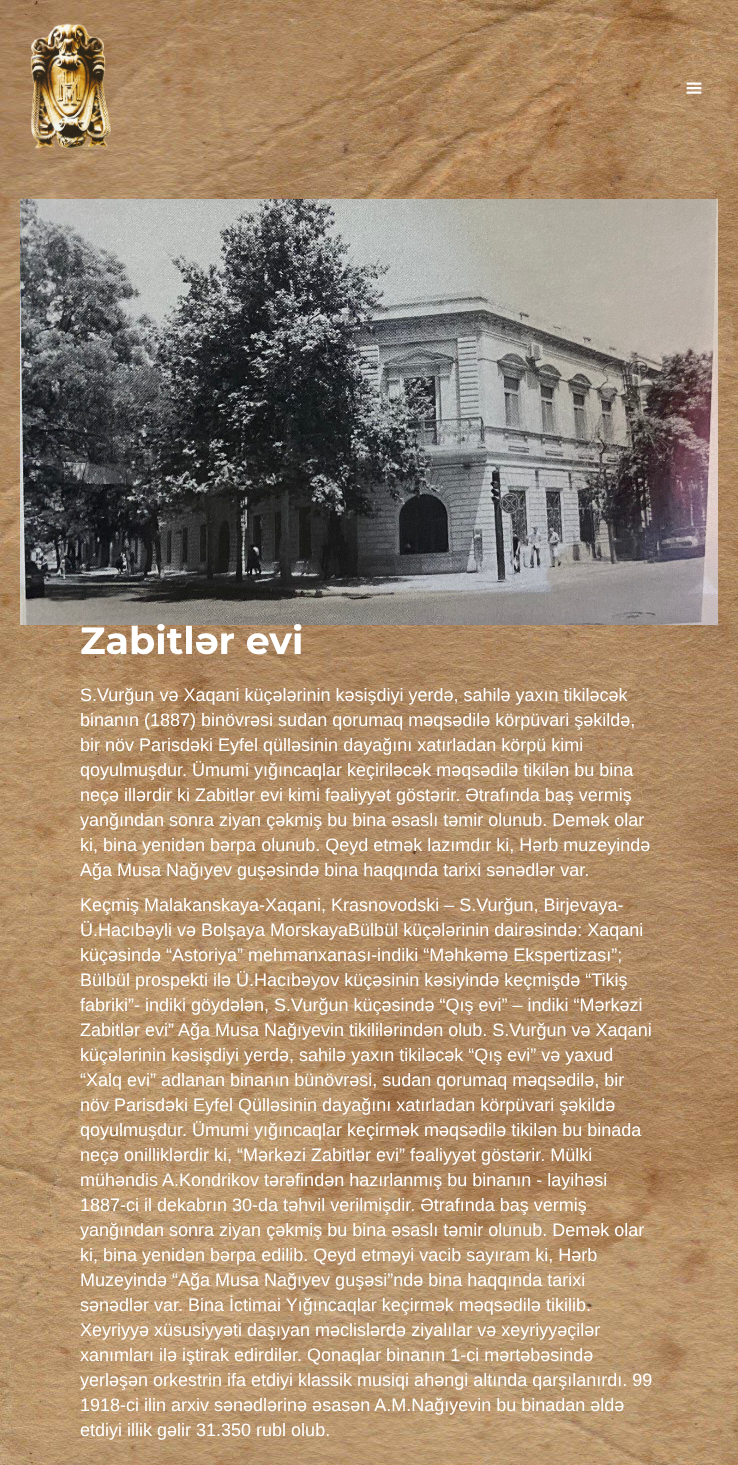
<!DOCTYPE html>
<meta charset="utf-8">
<style>body { margin: 0 } canvas { display: block }</style>
<canvas id="canvas" width="738" height="1465"></canvas>
<script type="module">
  const canvas = document.getElementById("canvas");
  const ctx = canvas.getContext("2d");
  ctx.miterLimit = 4;
  ctx.fontKerning = "normal";
  async function loadImage(src) {
    const img = new Image();
    img.src = src;
    await img.decode();
    return img;
  }

  ctx.fillStyle = "#ffffff";
  ctx.fillRect(0, 0, 738, 1465);
  ctx.drawImage(await loadImage("img1.png"), 0, 0, 738, 1465);
  ctx.drawImage(await loadImage("img2.png"), 30, 23, 81, 126);
  ctx.drawImage(await loadImage("img3.png"), 686, 82, 16, 12);
  ctx.drawImage(await loadImage("img4.png"), 20, 199, 698, 426);
  ctx.font = "bold 38px Montserrat";
  ctx.fillText("Zabitlər evi", 80, 654);
  ctx.font = "18px Liberation Sans";
  ctx.fillText("S.Vurğun və Xaqani küçələrinin kəsişdiyi yerdə, sahilə yaxın tikiləcək", 80, 701);
  ctx.fillText("binanın (1887) binövrəsi sudan qorumaq məqsədilə körpüvari şəkildə,", 80, 726);
  ctx.fillText("bir növ Parisdəki Eyfel qülləsinin dayağını xatırladan körpü kimi", 80, 751);
  ctx.fillText("qoyulmuşdur. Ümumi yığıncaqlar keçiriləcək məqsədilə tikilən bu bina", 80, 776);
  ctx.fillText("neçə illərdir ki Zabitlər evi kimi fəaliyyət göstərir. Ətrafında baş vermiş", 80, 801);
  ctx.fillText("yanğından sonra ziyan çəkmiş bu bina əsaslı təmir olunub. Demək olar", 80, 826);
  ctx.fillText("ki, bina yenidən bərpa olunub. Qeyd etmək lazımdır ki, Hərb muzeyində", 80, 851);
  ctx.fillText("Ağa Musa Nağıyev guşəsində bina haqqında tarixi sənədlər var.", 80, 876);
  ctx.fillText("Keçmiş Malakanskaya-Xaqani, Krasnovodski – S.Vurğun, Birjevaya-", 80, 911);
  ctx.fillText("Ü.Hacıbəyli və Bolşaya MorskayaBülbül küçələrinin dairəsində: Xaqani", 80, 936);
  ctx.fillText("küçəsində “Astoriya” mehmanxanası-indiki “Məhkəmə Ekspertizası”;", 80, 961);
  ctx.fillText("Bülbül prospekti ilə Ü.Hacıbəyov küçəsinin kəsiyində keçmişdə “Tikiş", 80, 986);
  ctx.fillText("fabriki”- indiki göydələn, S.Vurğun küçəsində “Qış evi” – indiki “Mərkəzi", 80, 1011);
  ctx.fillText("Zabitlər evi” Ağa Musa Nağıyevin tikililərindən olub. S.Vurğun və Xaqani", 80, 1036);
  ctx.fillText("küçələrinin kəsişdiyi yerdə, sahilə yaxın tikiləcək “Qış evi” və yaxud", 80, 1061);
  ctx.fillText("“Xalq evi” adlanan binanın bünövrəsi, sudan qorumaq məqsədilə, bir", 80, 1086);
  ctx.fillText("növ Parisdəki Eyfel Qülləsinin dayağını xatırladan körpüvari şəkildə", 80, 1111);
  ctx.fillText("qoyulmuşdur. Ümumi yığıncaqlar keçirmək məqsədilə tikilən bu binada", 80, 1136);
  ctx.fillText("neçə onilliklərdir ki, “Mərkəzi Zabitlər evi” fəaliyyət göstərir. Mülki", 80, 1161);
  ctx.fillText("mühəndis A.Kondrikov tərəfindən hazırlanmış bu binanın - layihəsi", 80, 1186);
  ctx.fillText("1887-ci il dekabrın 30-da təhvil verilmişdir. Ətrafında baş vermiş", 80, 1211);
  ctx.fillText("yanğından sonra ziyan çəkmiş bu bina əsaslı təmir olunub. Demək olar", 80, 1236);
  ctx.fillText("ki, bina yenidən bərpa edilib. Qeyd etməyi vacib sayıram ki, Hərb", 80, 1261);
  ctx.fillText("Muzeyində “Ağa Musa Nağıyev guşəsi”ndə bina haqqında tarixi", 80, 1286);
  ctx.fillText("sənədlər var. Bina İctimai Yığıncaqlar keçirmək məqsədilə tikilib.", 80, 1311);
  ctx.fillText("Xeyriyyə xüsusiyyəti daşıyan məclislərdə ziyalılar və xeyriyyəçilər", 80, 1336);
  ctx.fillText("xanımları ilə iştirak edirdilər. Qonaqlar binanın 1-ci mərtəbəsində", 80, 1361);
  ctx.fillText("yerləşən orkestrin ifa etdiyi klassik musiqi ahəngi altında qarşılanırdı. 99", 80, 1386);
  ctx.fillText("1918-ci ilin arxiv sənədlərinə əsasən A.M.Nağıyevin bu binadan əldə", 80, 1411);
  ctx.fillText("etdiyi illik gəlir 31.350 rubl olub.", 80, 1436);
</script>
